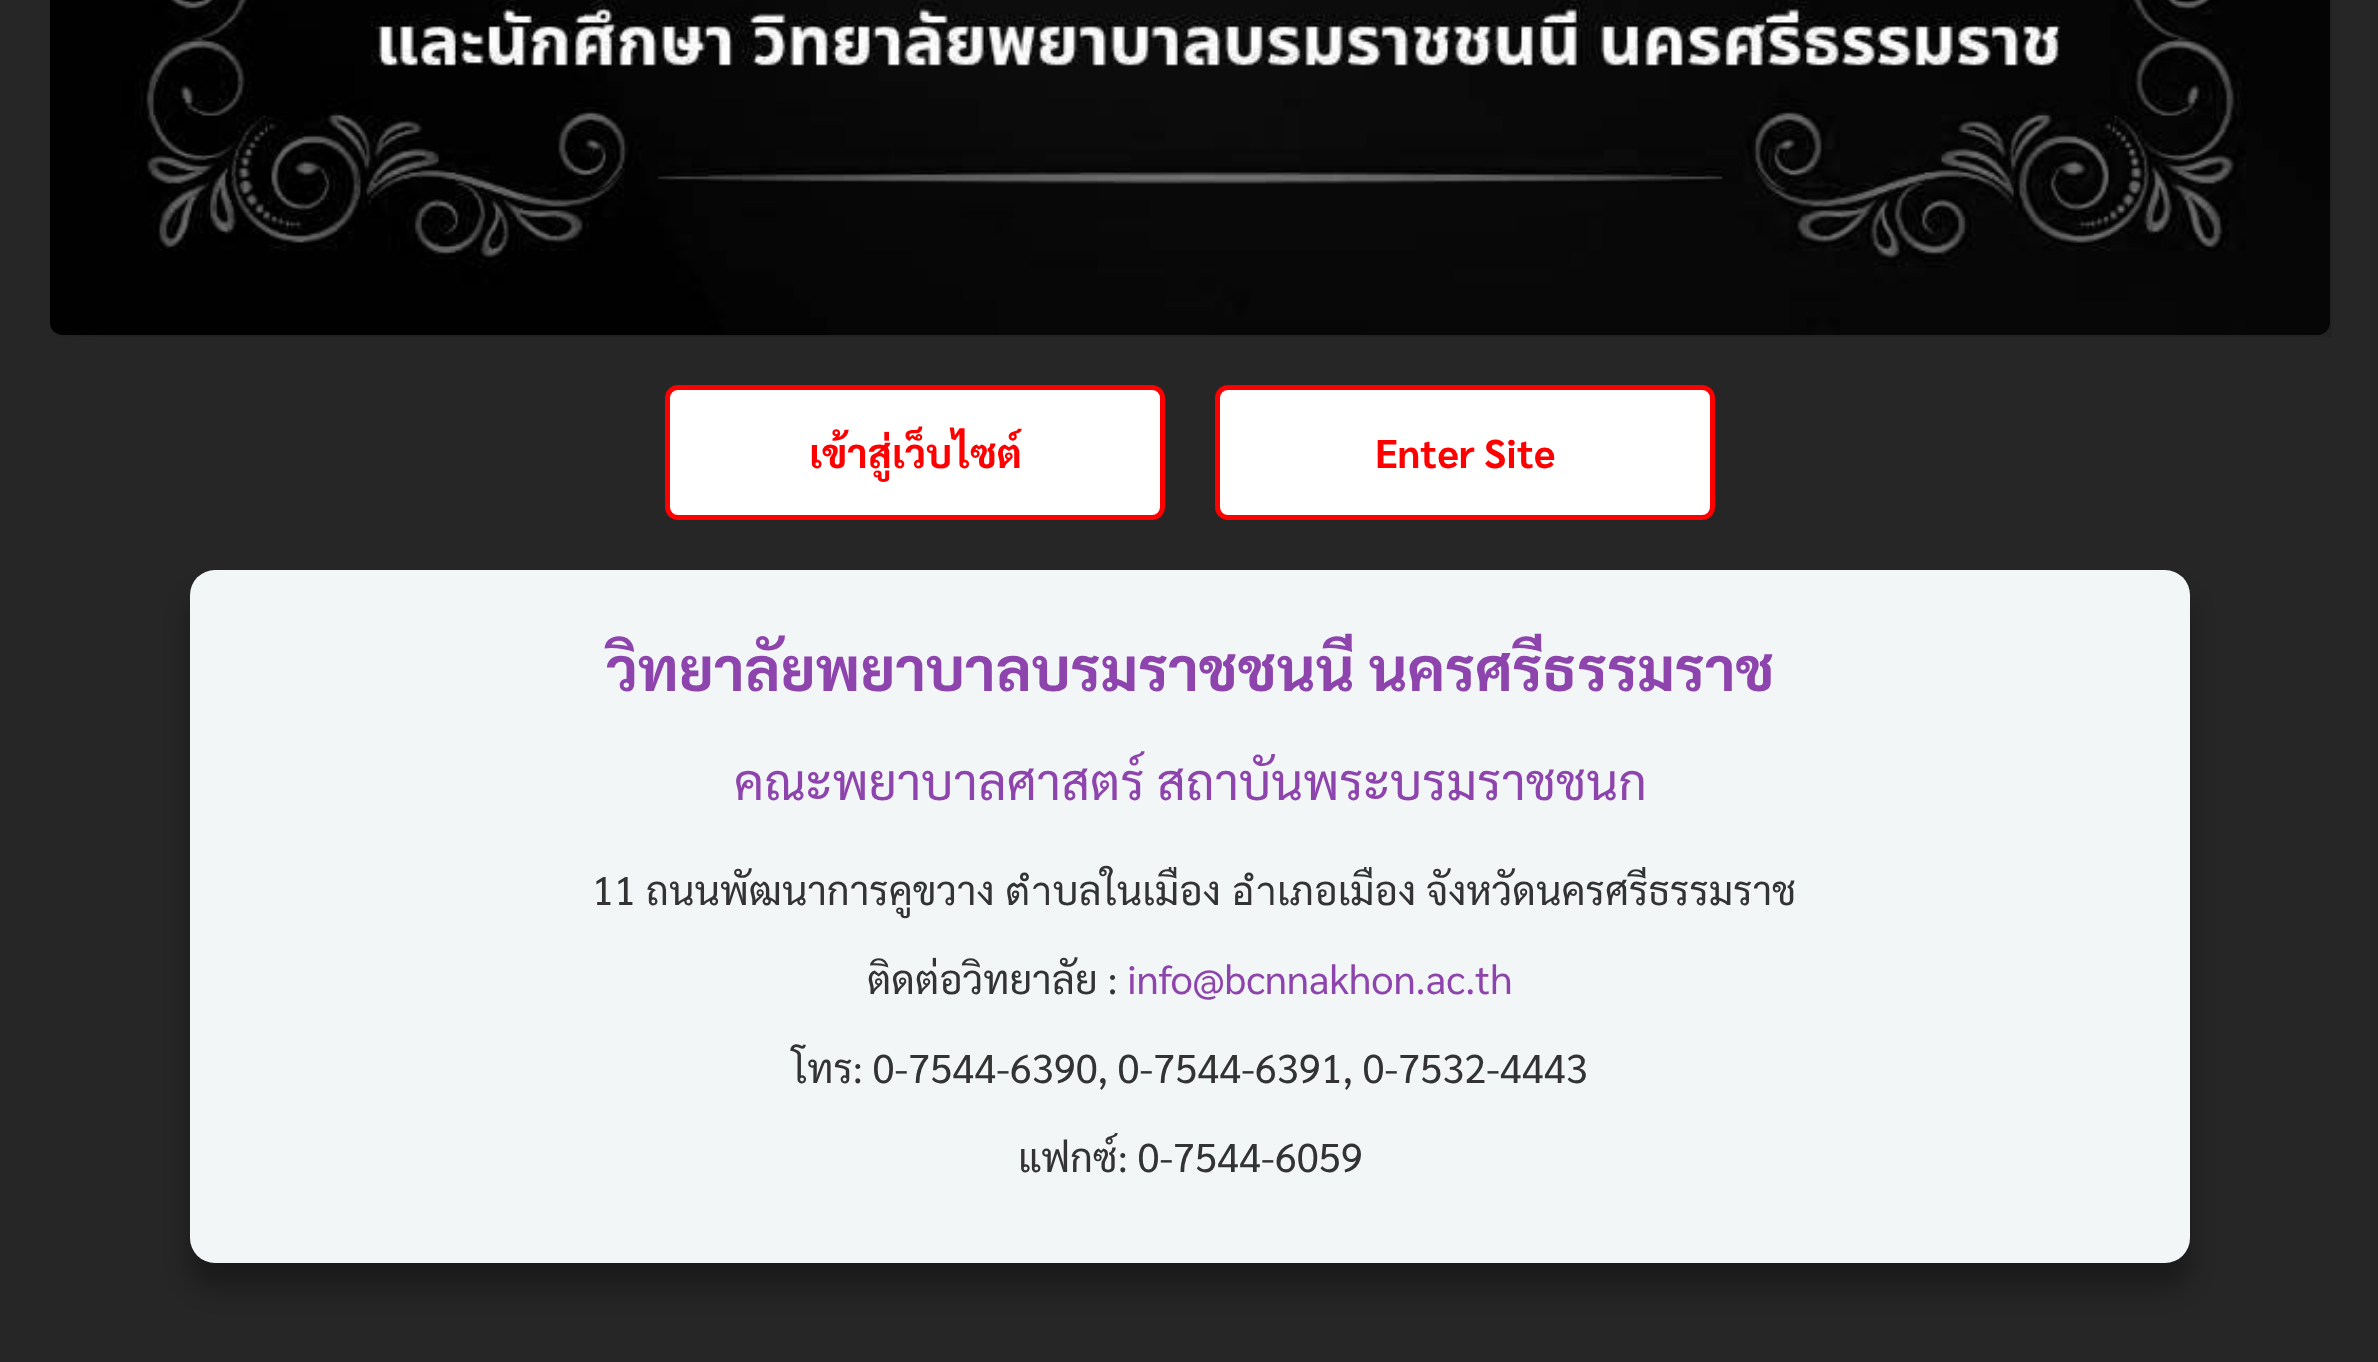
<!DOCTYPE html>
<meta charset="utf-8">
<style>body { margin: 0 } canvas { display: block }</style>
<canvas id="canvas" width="2378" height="1362"></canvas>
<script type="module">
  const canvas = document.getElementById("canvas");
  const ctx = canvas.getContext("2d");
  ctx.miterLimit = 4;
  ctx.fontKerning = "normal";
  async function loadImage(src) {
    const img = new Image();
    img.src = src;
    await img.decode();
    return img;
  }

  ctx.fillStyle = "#262626";
  ctx.fillRect(0, 0, 2378, 1362);
  ctx.drawImage(await loadImage("img1.png"), 50, 0, 2282, 337);
  ctx.fillStyle = "#ffffff";
  ctx.beginPath();
  ctx.roundRect(667.5, 387.5, 495, 130, 10.5);
  ctx.fill();
  ctx.strokeStyle = "#ff0000";
  ctx.lineWidth = 5;
  ctx.stroke();
  ctx.font = "bold 40px Sarabun";
  ctx.fillStyle = "#ff0000";
  ctx.fillText("เข้าสู่เว็บไซต์", 809, 468);
  ctx.fillStyle = "#ffffff";
  ctx.beginPath();
  ctx.roundRect(1217.5, 387.5, 495, 130, 10.5);
  ctx.fill();
  ctx.stroke();
  ctx.fillStyle = "#ff0000";
  ctx.fillText("Enter Site", 1375, 468);
  ctx.fillStyle = "rgba(0, 0, 0, 0.3)";
  ctx.filter = "blur(12.5px)";
  ctx.beginPath();
  ctx.roundRect(190, 595, 2000, 693, 25);
  ctx.fill();
  ctx.filter = "none";
  ctx.fillStyle = "#f2f6f7";
  ctx.beginPath();
  ctx.roundRect(190, 570, 2000, 693, 25);
  ctx.fill();
  ctx.font = "bold 60px Sarabun";
  ctx.fillStyle = "#8e44ad";
  ctx.fillText("วิทยาลัยพยาบาลบรมราชชนนี นครศรีธรรมราช", 606, 691);
  ctx.font = "50px Sarabun";
  ctx.fillText("คณะพยาบาลศาสตร์ สถาบันพระบรมราชชนก", 734, 800);
  ctx.font = "40px Sarabun";
  ctx.fillStyle = "#333333";
  ctx.fillText("11 ถนนพัฒนาการคูขวาง ตำบลในเมือง อำเภอเมือง จังหวัดนครศรีธรรมราช", 592, 905);
  ctx.fillText("ติดต่อวิทยาลัย :", 867, 994);
  ctx.fillStyle = "#8e44ad";
  ctx.fillText("info@bcnnakhon.ac.th", 1127, 994);
  ctx.fillStyle = "#333333";
  ctx.fillText("โทร: 0-7544-6390, 0-7544-6391, 0-7532-4443", 792, 1083);
  ctx.fillText("แฟกซ์: 0-7544-6059", 1018, 1172);
</script>
